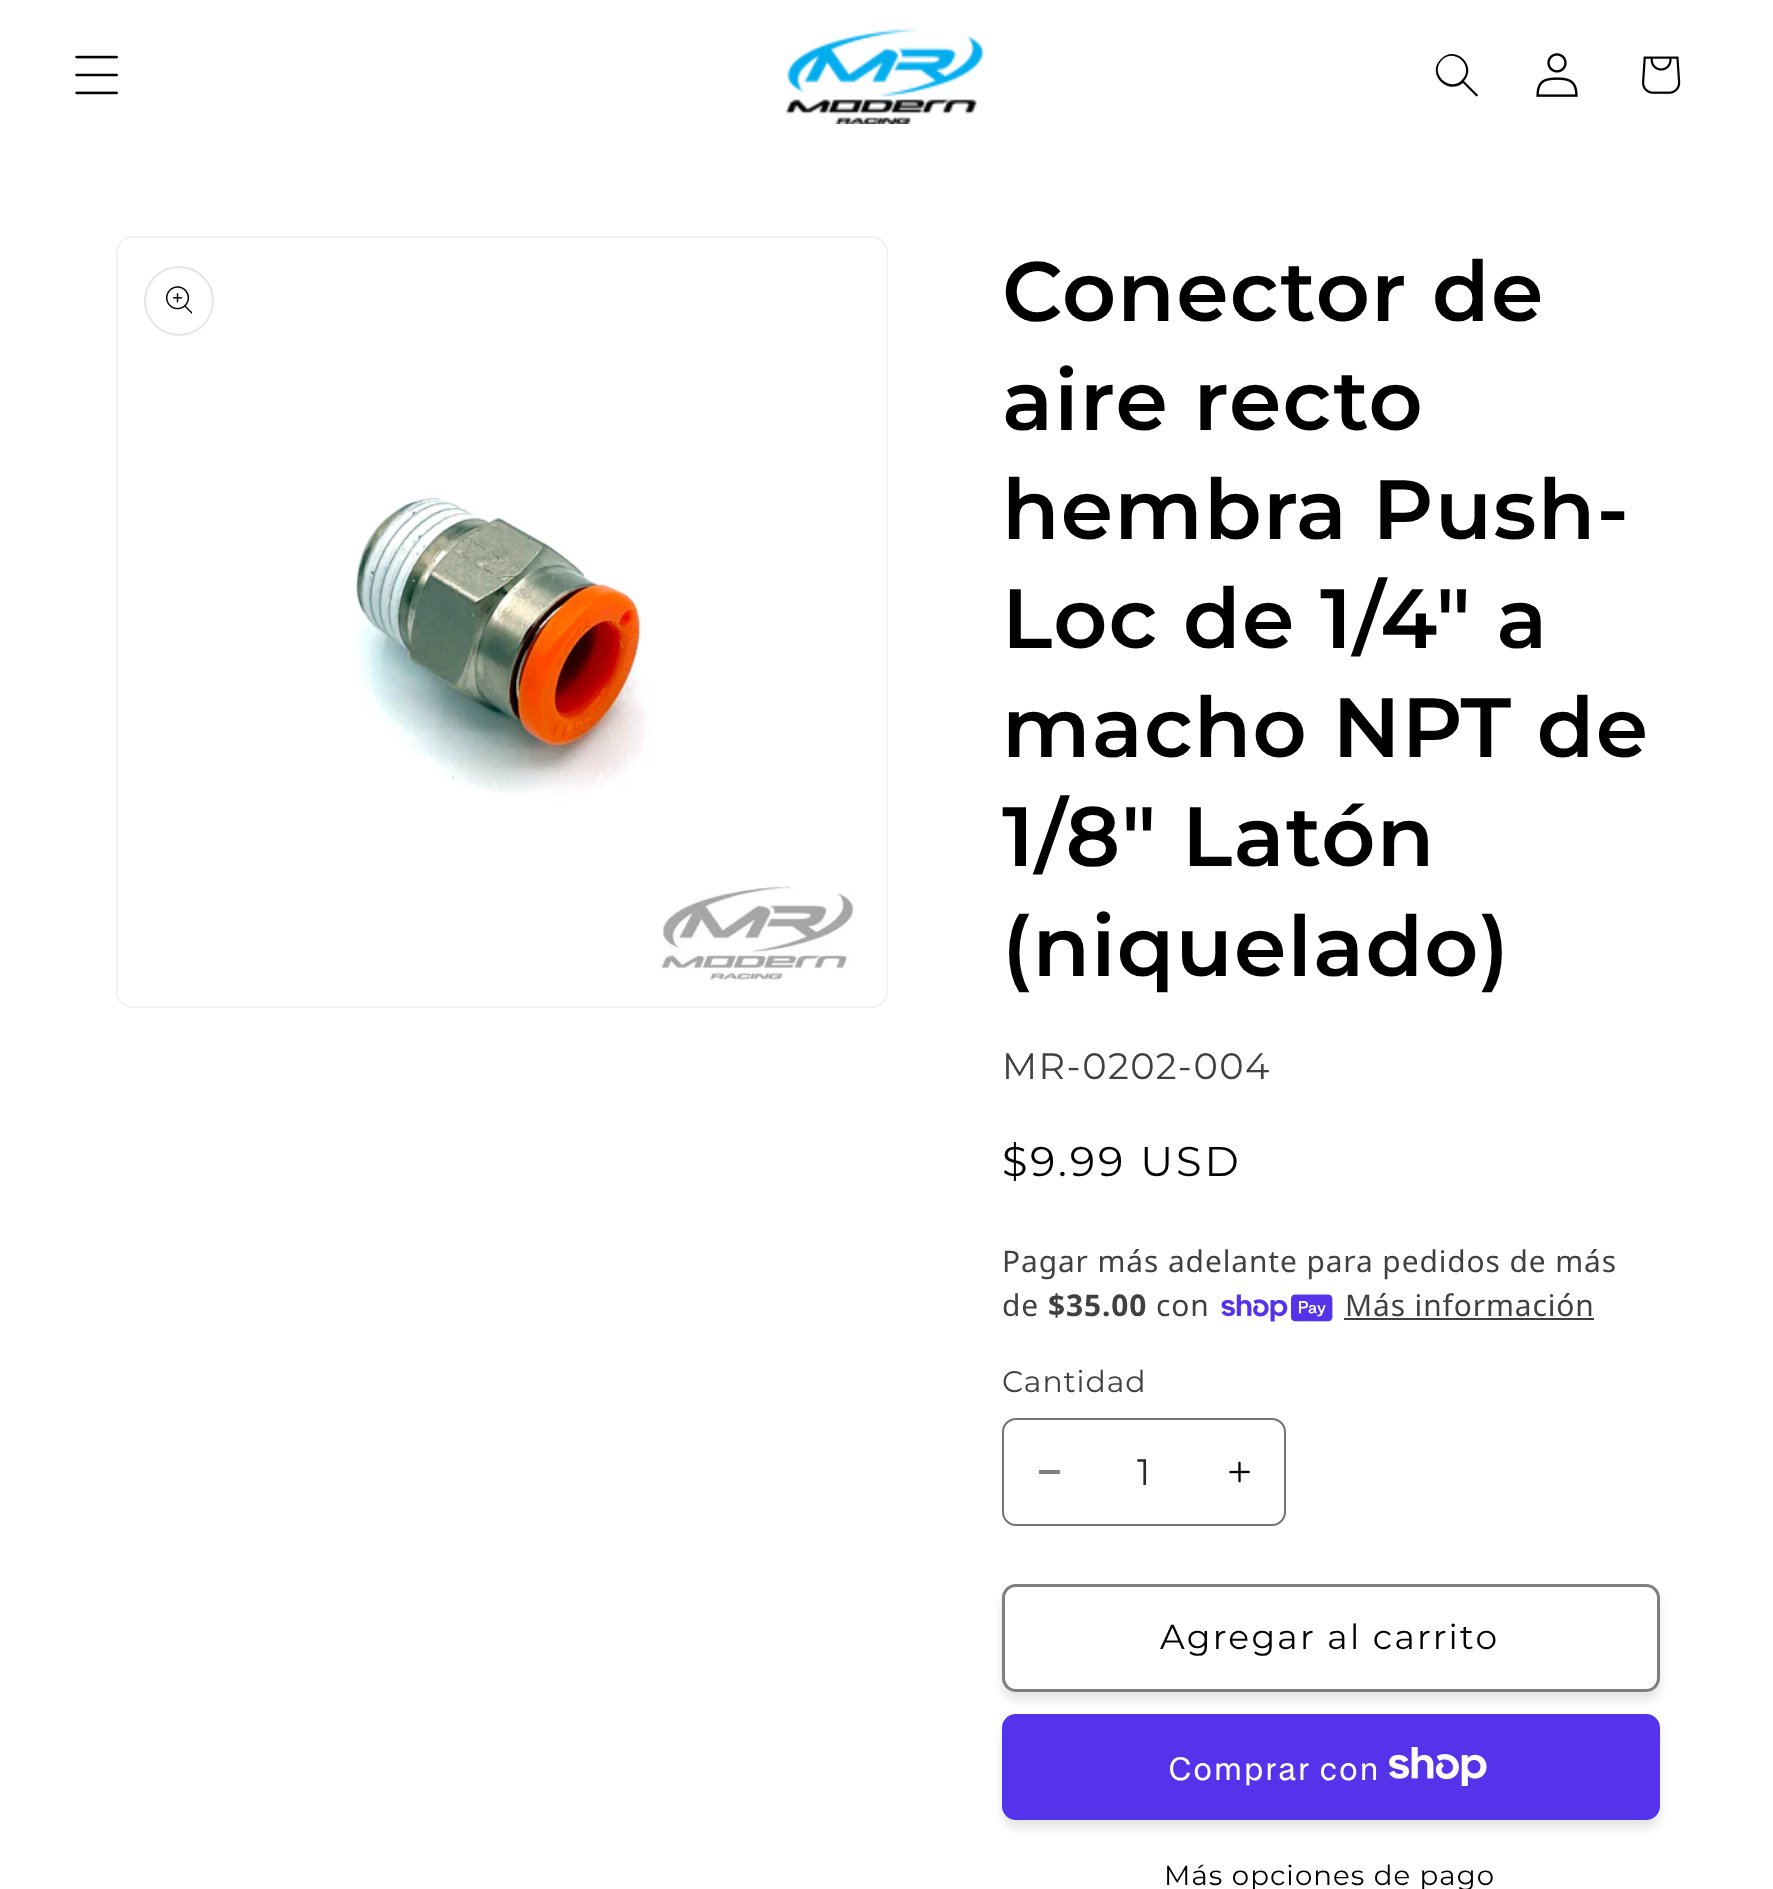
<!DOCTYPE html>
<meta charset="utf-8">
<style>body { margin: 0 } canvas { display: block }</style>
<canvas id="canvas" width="1773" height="1889"></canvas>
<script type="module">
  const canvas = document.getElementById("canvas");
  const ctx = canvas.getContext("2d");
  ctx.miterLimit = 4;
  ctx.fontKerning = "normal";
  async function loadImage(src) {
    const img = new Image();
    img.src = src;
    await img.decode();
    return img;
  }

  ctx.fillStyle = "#ffffff";
  ctx.fillRect(0, 0, 1773, 1889);
  ctx.drawImage(await loadImage("img1.png"), 75, 55, 43, 40);
  ctx.drawImage(await loadImage("img2.png"), 786, 28, 199, 96);
  ctx.fillStyle = "#000000";
  ctx.beginPath();
  ctx.moveTo(1462, 80);
  ctx.bezierCurveTo(1449, 93, 1429, 73, 1442, 60);
  ctx.bezierCurveTo(1455, 47, 1475, 67, 1462, 80);
  ctx.moveTo(1463, 83);
  ctx.bezierCurveTo(1447, 96, 1426, 73, 1441, 59);
  ctx.bezierCurveTo(1455, 44, 1478, 66, 1464, 81);
  ctx.lineTo(1478, 95);
  ctx.bezierCurveTo(1478, 96, 1476, 97, 1476, 96);
  ctx.closePath();
  ctx.fill("evenodd");
  ctx.drawImage(await loadImage("img3.png"), 1536, 53, 42, 44);
  ctx.drawImage(await loadImage("img4.png"), 1642, 56, 39, 38);
  ctx.beginPath();
  ctx.roundRect(117, 237, 770, 770, 15);
  ctx.strokeStyle = "#f2f2f2";
  ctx.lineWidth = 2;
  ctx.stroke();
  ctx.beginPath();
  ctx.arc(179, 301, 34, 0, Math.PI * 2);
  ctx.strokeStyle = "#e6e6e6";
  ctx.stroke();
  ctx.drawImage(await loadImage("img5.png"), 166, 286, 26, 28);
  ctx.drawImage(await loadImage("img6.png"), 354, 494, 501, 486);
  ctx.letterSpacing = "1.25px";
  ctx.font = "600 84px Montserrat";
  ctx.fillText("Conector de", 1002, 321);
  ctx.fillText("aire recto", 1002, 430);
  ctx.fillText("hembra Push-", 1002, 539);
  ctx.fillText("Loc de 1/4\" a", 1002, 648);
  ctx.fillText("macho NPT de", 1002, 757);
  ctx.fillText("1/8\" Latón", 1002, 866);
  ctx.fillText("(niquelado)", 1002, 976);
  ctx.letterSpacing = "1.4px";
  ctx.font = "36.75px Montserrat";
  ctx.fillStyle = "#404040";
  ctx.fillText("MR-0202-004", 1002, 1079);
  ctx.letterSpacing = "3px";
  ctx.font = "41.5px Montserrat";
  ctx.fillStyle = "#000000";
  ctx.fillText("$9.99 USD", 1002, 1176);
  ctx.letterSpacing = "0.9px";
  ctx.font = "29.9px Noto Sans";
  ctx.fillStyle = "#404040";
  ctx.fillText("Pagar más adelante para pedidos de más", 1002, 1272);
  ctx.fillText("de", 1002, 1316);
  ctx.font = "bold 29.9px Noto Sans";
  ctx.fillText("$35.00", 1048, 1316);
  ctx.font = "29.9px Noto Sans";
  ctx.fillText("con", 1156, 1316);
  ctx.drawImage(await loadImage("img7.png"), 1221, 1294, 112, 28);
  ctx.fillText("Más información", 1345, 1316);
  ctx.fillRect(1344, 1318, 250, 2);
  ctx.font = "29.9px Montserrat";
  ctx.fillText("Cantidad", 1002, 1392);
  ctx.fillStyle = "#808080";
  ctx.fillRect(1039, 1470, 21, 4);
  ctx.drawImage(await loadImage("img8.png"), 1229, 1461, 21, 22);
  ctx.beginPath();
  ctx.roundRect(1003, 1419, 282, 106, 13);
  ctx.strokeStyle = "#737373";
  ctx.stroke();
  ctx.letterSpacing = "0px";
  ctx.font = "36.75px Montserrat";
  ctx.fillStyle = "#262626";
  ctx.fillText("1", 1137, 1485);
  ctx.fillStyle = "rgba(0, 0, 0, 0.1)";
  ctx.filter = "blur(5px)";
  ctx.beginPath();
  ctx.roundRect(1002, 1592, 658, 108, 14);
  ctx.fill();
  ctx.filter = "none";
  ctx.fillStyle = "#ffffff";
  ctx.beginPath();
  ctx.roundRect(1002, 1584, 658, 108, 14);
  ctx.fill();
  ctx.beginPath();
  ctx.roundRect(1003, 1585, 656, 106, 13);
  ctx.strokeStyle = "#ffffff";
  ctx.stroke();
  ctx.beginPath();
  ctx.roundRect(1003.5, 1585.5, 655, 105, 12.5);
  ctx.strokeStyle = "rgba(0, 0, 0, 0.5)";
  ctx.lineWidth = 3;
  ctx.stroke();
  ctx.letterSpacing = "2.25px";
  ctx.font = "34.5px Montserrat";
  ctx.fillStyle = "#000000";
  ctx.fillText("Agregar al carrito", 1160, 1649);
  ctx.fillStyle = "rgba(0, 0, 0, 0.1)";
  ctx.filter = "blur(5px)";
  ctx.beginPath();
  ctx.roundRect(1002, 1722, 658, 106, 14);
  ctx.fill();
  ctx.filter = "none";
  ctx.fillStyle = "#5433eb";
  ctx.beginPath();
  ctx.roundRect(1002, 1714, 658, 106, 14);
  ctx.fill();
  ctx.letterSpacing = "1.4px";
  ctx.font = "32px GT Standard";
  ctx.fillStyle = "#ffffff";
  ctx.fillText("Comprar con", 1168, 1780);
  ctx.drawImage(await loadImage("img9.png"), 1389, 1747, 98, 39);
  ctx.letterSpacing = "1.1px";
  ctx.font = "27.6px Montserrat";
  ctx.fillStyle = "#000000";
  ctx.fillText("Más opciones de pago", 1164, 1885);
</script>
